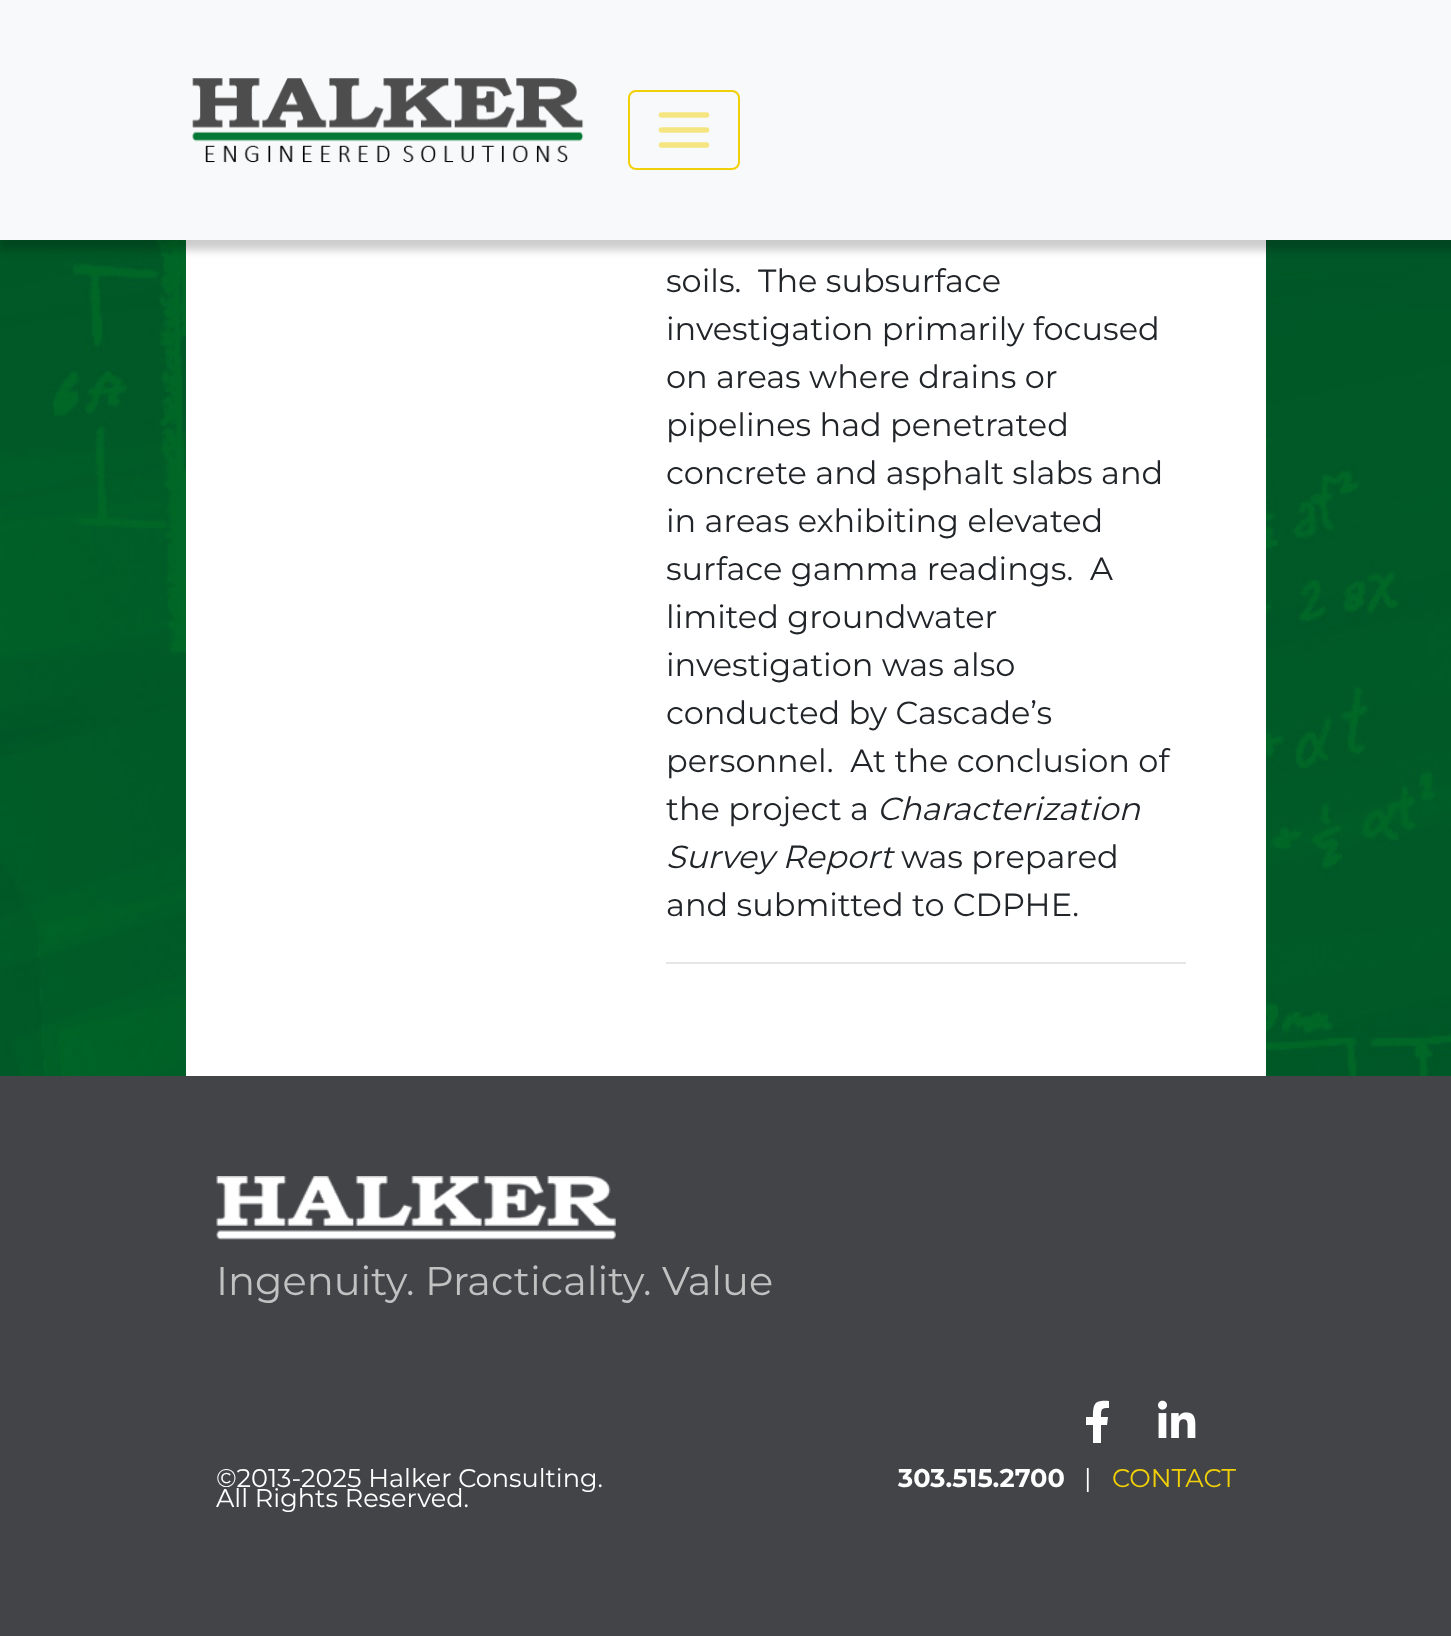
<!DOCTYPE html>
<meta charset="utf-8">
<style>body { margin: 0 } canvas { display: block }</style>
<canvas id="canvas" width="1451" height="1636"></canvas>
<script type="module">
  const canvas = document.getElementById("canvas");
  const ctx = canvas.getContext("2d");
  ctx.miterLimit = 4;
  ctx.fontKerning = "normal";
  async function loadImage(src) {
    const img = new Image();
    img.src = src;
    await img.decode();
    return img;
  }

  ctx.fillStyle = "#424448";
  ctx.fillRect(0, 0, 1451, 1636);
  ctx.drawImage(await loadImage("img2.png"), 0, 240, 1451, 836);
  ctx.fillStyle = "#ffffff";
  ctx.fillRect(186, 240, 1080, 836);
  ctx.fillStyle = "rgba(0, 0, 0, 0.2)";
  ctx.filter = "blur(4px)";
  ctx.beginPath();
  ctx.rect(-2, -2, 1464, 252);
  ctx.fill();
  ctx.filter = "none";
  ctx.fillStyle = "#f8f9fa";
  ctx.fillRect(0, 0, 1451, 240);
  ctx.drawImage(await loadImage("img1.png"), 192, 78, 392, 85);
  ctx.beginPath();
  ctx.roundRect(629, 91, 110, 78, 7);
  ctx.strokeStyle = "#f1d007";
  ctx.lineWidth = 2;
  ctx.stroke();
  ctx.beginPath();
  ctx.moveTo(661.5, 115);
  ctx.lineTo(706.5, 115);
  ctx.moveTo(661.5, 130);
  ctx.lineTo(706.5, 130);
  ctx.moveTo(661.5, 145);
  ctx.lineTo(706.5, 145);
  ctx.strokeStyle = "#f5e581";
  ctx.lineWidth = 5.6;
  ctx.lineCap = "round";
  ctx.stroke();
  ctx.font = "100 32px Montserrat";
  ctx.fillStyle = "#212529";
  ctx.fillText("soils.  The subsurface", 666, 292);
  ctx.fillText("investigation primarily focused", 666, 340);
  ctx.fillText("on areas where drains or", 666, 388);
  ctx.fillText("pipelines had penetrated", 666, 436);
  ctx.fillText("concrete and asphalt slabs and", 666, 484);
  ctx.fillText("in areas exhibiting elevated", 666, 532);
  ctx.fillText("surface gamma readings.  A", 666, 580);
  ctx.fillText("limited groundwater", 666, 628);
  ctx.fillText("investigation was also", 666, 676);
  ctx.fillText("conducted by Cascade’s", 666, 724);
  ctx.fillText("personnel.  At the conclusion of", 666, 772);
  ctx.fillText("the project a", 666, 820);
  ctx.font = "italic 100 32px Montserrat";
  ctx.fillText("Characterization", 877, 820);
  ctx.fillText("Survey Report", 666, 868);
  ctx.font = "100 32px Montserrat";
  ctx.fillText("was prepared", 901, 868);
  ctx.fillText("and submitted to CDPHE.", 666, 916);
  ctx.fillStyle = "#e6e6e6";
  ctx.fillRect(666, 962, 520, 2);
  ctx.drawImage(await loadImage("img3.png"), 216, 1176, 400, 64);
  ctx.font = "100 40px Montserrat";
  ctx.fillStyle = "#c1c1c1";
  ctx.fillText("Ingenuity. Practicality. Value", 216, 1295);
  ctx.fillStyle = "#ffffff";
  ctx.beginPath();
  ctx.moveTo(1107, 1425);
  ctx.lineTo(1101, 1425);
  ctx.lineTo(1101, 1443);
  ctx.lineTo(1093, 1443);
  ctx.lineTo(1093, 1425);
  ctx.lineTo(1086, 1425);
  ctx.lineTo(1086, 1417);
  ctx.lineTo(1093, 1417);
  ctx.bezierCurveTo(1093, 1403, 1095, 1400, 1109, 1401);
  ctx.lineTo(1109, 1408);
  ctx.bezierCurveTo(1101, 1408, 1101, 1409, 1101, 1417);
  ctx.lineTo(1108, 1417);
  ctx.closePath();
  ctx.fill();
  ctx.drawImage(await loadImage("img4.png"), 1158, 1400, 38, 38);
  ctx.font = "100 25.6px Montserrat";
  ctx.fillText("©2013-2025 Halker Consulting.", 216, 1487);
  ctx.fillText("All Rights Reserved.", 216, 1507);
  ctx.font = "bold 25.6px Montserrat";
  ctx.fillText("303.515.2700", 898, 1487);
  ctx.font = "100 25.6px Montserrat";
  ctx.fillText("|", 1084, 1487);
  ctx.fillStyle = "#f1d007";
  ctx.fillText("CONTACT", 1112, 1487);
</script>
